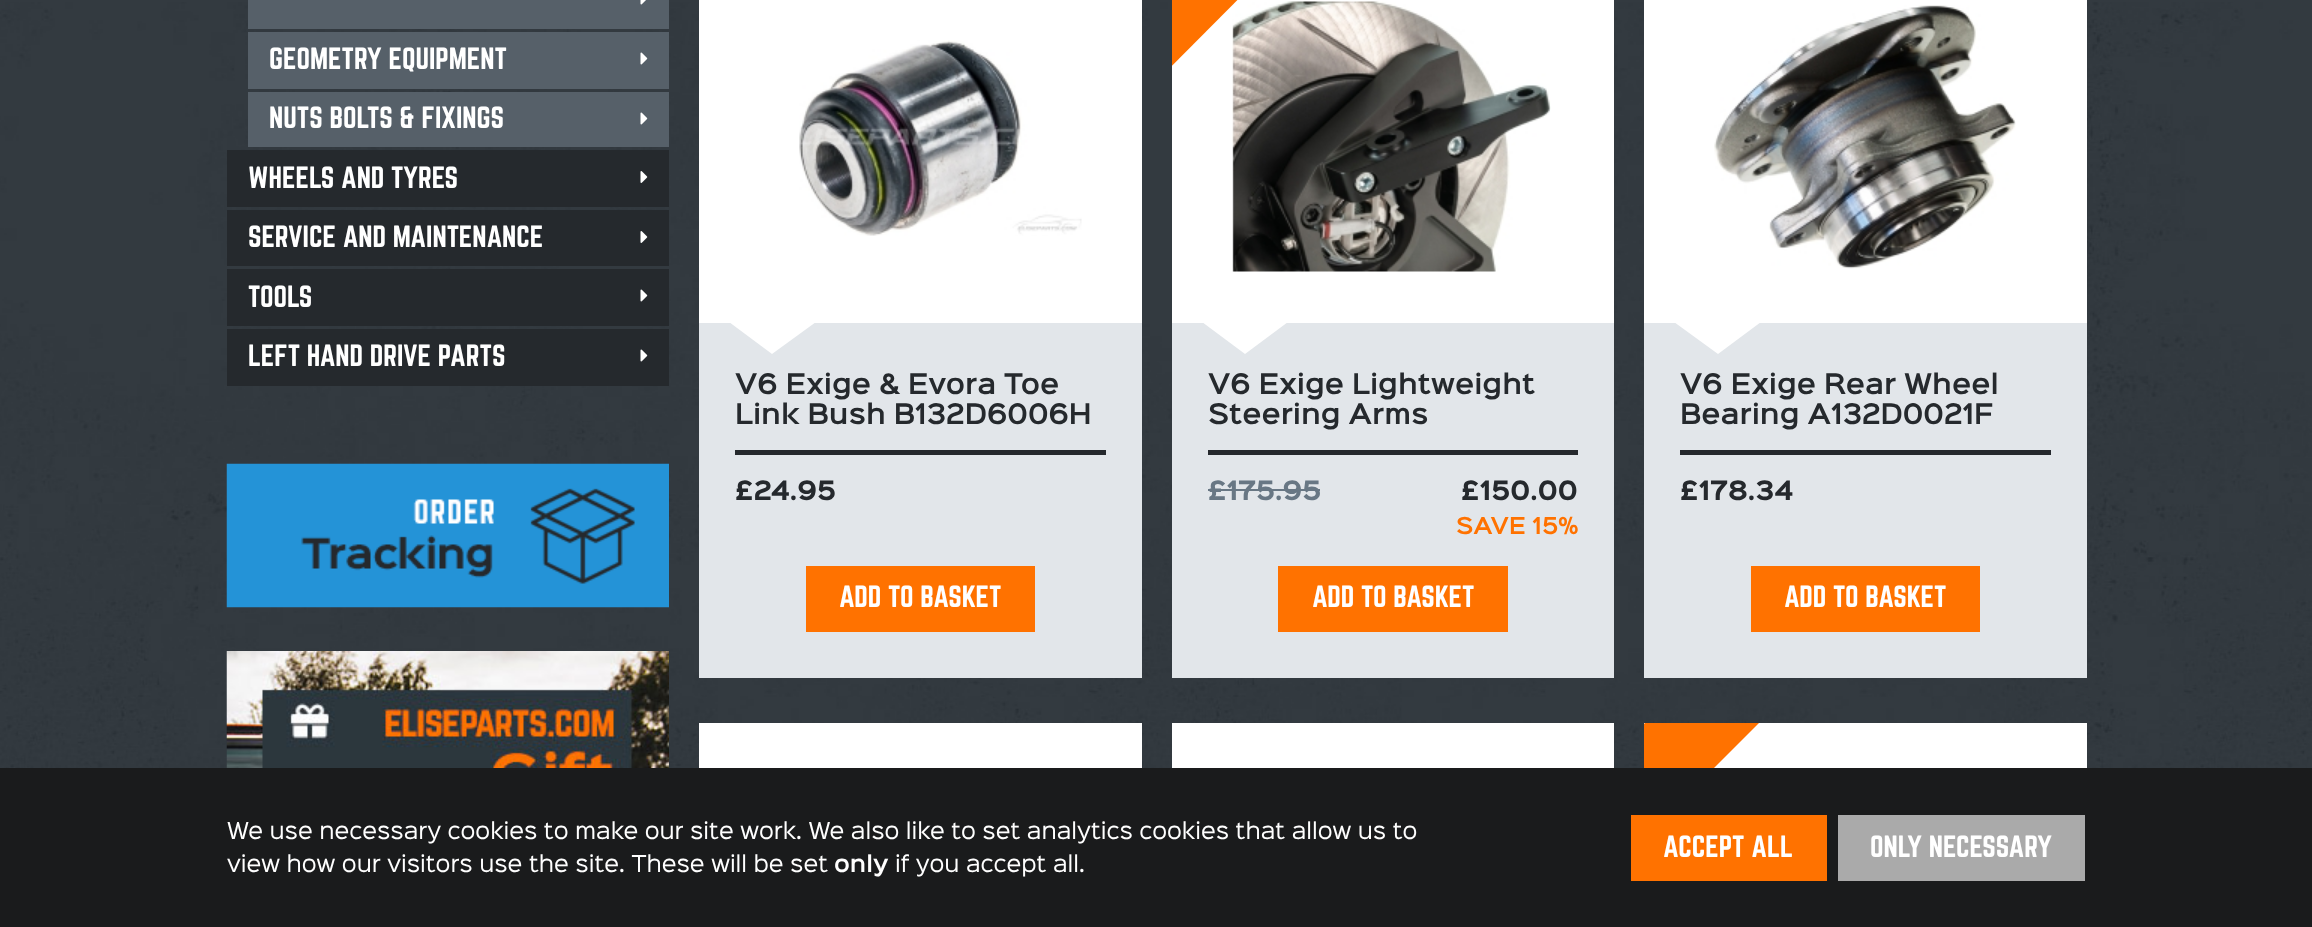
<!DOCTYPE html>
<meta charset="utf-8">
<style>body { margin: 0 } canvas { display: block }</style>
<canvas id="canvas" width="2312" height="927"></canvas>
<script type="module">
  const canvas = document.getElementById("canvas");
  const ctx = canvas.getContext("2d");
  ctx.miterLimit = 4;
  ctx.fontKerning = "normal";
  async function loadImage(src) {
    const img = new Image();
    img.src = src;
    await img.decode();
    return img;
  }

  ctx.fillStyle = "#333a40";
  ctx.fillRect(0, 0, 2312, 927);
  ctx.drawImage(await loadImage("img1.png"), 0, 2, 2312, 766);
  ctx.fillStyle = "#566069";
  ctx.fillRect(248, 0, 421, 29);
  ctx.drawImage(await loadImage("img2.png"), 640, 0, 6, 5);
  ctx.fillRect(248, 32, 421, 57);
  ctx.font = "27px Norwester";
  ctx.fillStyle = "#ffffff";
  ctx.fillText("GEOMETRY EQUIPMENT", 269, 69);
  ctx.drawImage(await loadImage("img3.png"), 640, 52, 8, 13);
  ctx.fillStyle = "#566069";
  ctx.fillRect(248, 92, 421, 55);
  ctx.fillStyle = "#ffffff";
  ctx.fillText("NUTS BOLTS & FIXINGS", 269, 128);
  ctx.drawImage(await loadImage("img3.png"), 640, 112, 8, 13);
  ctx.fillStyle = "#25292d";
  ctx.fillRect(227, 150, 442, 57);
  ctx.fillStyle = "#ffffff";
  ctx.fillText("WHEELS AND TYRES", 248, 188);
  ctx.drawImage(await loadImage("img4.png"), 640, 171, 8, 12);
  ctx.fillStyle = "#25292d";
  ctx.fillRect(227, 210, 442, 56);
  ctx.fillStyle = "#ffffff";
  ctx.fillText("SERVICE AND MAINTENANCE", 248, 247);
  ctx.drawImage(await loadImage("img4.png"), 640, 231, 8, 12);
  ctx.fillStyle = "#25292d";
  ctx.fillRect(227, 269, 442, 57);
  ctx.fillStyle = "#ffffff";
  ctx.fillText("TOOLS", 248, 307);
  ctx.drawImage(await loadImage("img5.png"), 640, 289, 8, 13);
  ctx.fillStyle = "#25292d";
  ctx.fillRect(227, 329, 442, 57);
  ctx.fillStyle = "#ffffff";
  ctx.fillText("LEFT HAND DRIVE PARTS", 248, 366);
  ctx.drawImage(await loadImage("img5.png"), 640, 349, 8, 13);
  ctx.drawImage(await loadImage("img6.png"), 226, 463, 443, 145);
  ctx.drawImage(await loadImage("img7.png"), 226, 651, 443, 117);
  ctx.fillStyle = "#e2e6ea";
  ctx.fillRect(699, 323, 443, 355);
  ctx.fillStyle = "#ffffff";
  ctx.fillRect(699, 0, 443, 323);
  ctx.drawImage(await loadImage("img8.png"), 799, 40, 283, 196);
  ctx.beginPath();
  ctx.moveTo(729, 322);
  ctx.lineTo(816, 322);
  ctx.lineTo(772, 354);
  ctx.closePath();
  ctx.fill();
  ctx.font = "600 25.5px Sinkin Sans";
  ctx.fillStyle = "#25292d";
  ctx.fillText("V6 Exige & Evora Toe", 735, 394);
  ctx.fillText("Link Bush B132D6006H", 735, 424);
  ctx.fillRect(735, 450, 371, 5);
  ctx.font = "bold 24px Sinkin Sans";
  ctx.fillText("£24.95", 735, 500);
  ctx.fillStyle = "#ff7200";
  ctx.fillRect(806, 566, 229, 66);
  ctx.font = "27px Norwester";
  ctx.fillStyle = "#ffffff";
  ctx.fillText("ADD TO BASKET", 839, 607);
  ctx.fillRect(1172, 0, 442, 323);
  ctx.drawImage(await loadImage("img9.png"), 1232, 1, 319, 271);
  ctx.save();
  ctx.beginPath();
  ctx.rect(1172, 0, 442, 678);
  ctx.clip();
  ctx.fillStyle = "#ff7200";
  ctx.beginPath();
  ctx.moveTo(1093, 29);
  ctx.lineTo(1252, -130);
  ctx.lineTo(1310, -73);
  ctx.lineTo(1151, 87);
  ctx.closePath();
  ctx.fill();
  ctx.restore();
  ctx.fillStyle = "#e2e6ea";
  ctx.fillRect(1172, 323, 442, 355);
  ctx.fillStyle = "#ffffff";
  ctx.beginPath();
  ctx.moveTo(1202, 322);
  ctx.lineTo(1288, 322);
  ctx.lineTo(1245, 354);
  ctx.closePath();
  ctx.fill();
  ctx.font = "600 25.5px Sinkin Sans";
  ctx.fillStyle = "#25292d";
  ctx.fillText("V6 Exige Lightweight", 1208, 394);
  ctx.fillText("Steering Arms", 1208, 424);
  ctx.fillRect(1208, 450, 370, 5);
  ctx.font = "bold 24px Sinkin Sans";
  ctx.fillStyle = "#687784";
  ctx.fillText("£175.95", 1208, 500);
  ctx.fillRect(1208, 489, 112, 2);
  ctx.fillStyle = "#25292d";
  ctx.fillText("£150.00", 1461, 500);
  ctx.font = "600 21px Sinkin Sans";
  ctx.fillStyle = "#ff7200";
  ctx.fillText("SAVE 15%", 1456, 534);
  ctx.fillRect(1278, 566, 230, 66);
  ctx.font = "27px Norwester";
  ctx.fillStyle = "#ffffff";
  ctx.fillText("ADD TO BASKET", 1312, 607);
  ctx.fillStyle = "#e2e6ea";
  ctx.fillRect(1644, 323, 443, 355);
  ctx.fillStyle = "#ffffff";
  ctx.fillRect(1644, 0, 443, 323);
  ctx.drawImage(await loadImage("img10.png"), 1714, 5, 302, 264);
  ctx.beginPath();
  ctx.moveTo(1674, 322);
  ctx.lineTo(1761, 322);
  ctx.lineTo(1718, 354);
  ctx.closePath();
  ctx.fill();
  ctx.font = "600 25.5px Sinkin Sans";
  ctx.fillStyle = "#25292d";
  ctx.fillText("V6 Exige Rear Wheel", 1680, 394);
  ctx.fillText("Bearing A132D0021F", 1680, 424);
  ctx.fillRect(1680, 450, 371, 5);
  ctx.font = "bold 24px Sinkin Sans";
  ctx.fillText("£178.34", 1680, 500);
  ctx.fillStyle = "#ff7200";
  ctx.fillRect(1751, 566, 229, 66);
  ctx.font = "27px Norwester";
  ctx.fillStyle = "#ffffff";
  ctx.fillText("ADD TO BASKET", 1784, 607);
  ctx.fillRect(699, 723, 443, 45);
  ctx.fillRect(1172, 723, 442, 45);
  ctx.fillRect(1644, 723, 443, 45);
  ctx.save();
  ctx.beginPath();
  ctx.rect(1644, 723, 443, 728);
  ctx.clip();
  ctx.fillStyle = "#ff7200";
  ctx.beginPath();
  ctx.moveTo(1566, 802);
  ctx.lineTo(1725, 643);
  ctx.lineTo(1782, 700);
  ctx.lineTo(1623, 859);
  ctx.closePath();
  ctx.fill();
  ctx.restore();
  ctx.fillStyle = "#1a1b1c";
  ctx.fillRect(0, 768, 2312, 159);
  ctx.font = "21px Sinkin Sans";
  ctx.fillStyle = "#ffffff";
  ctx.fillText("We use necessary cookies to make our site work. We also like to set analytics cookies that allow us to", 227, 839);
  ctx.fillText("view how our visitors use the site. These will be set", 227, 872);
  ctx.font = "600 21px Sinkin Sans";
  ctx.fillText("only", 834, 872);
  ctx.font = "21px Sinkin Sans";
  ctx.fillText("if you accept all.", 895, 872);
  ctx.fillStyle = "#ff7200";
  ctx.fillRect(1631, 815, 196, 66);
  ctx.font = "27px Norwester";
  ctx.fillStyle = "#ffffff";
  ctx.fillText("ACCEPT ALL", 1663, 857);
  ctx.fillStyle = "#aaaaaa";
  ctx.fillRect(1838, 815, 247, 66);
  ctx.fillStyle = "#ffffff";
  ctx.fillText("ONLY NECESSARY", 1870, 857);
</script>
